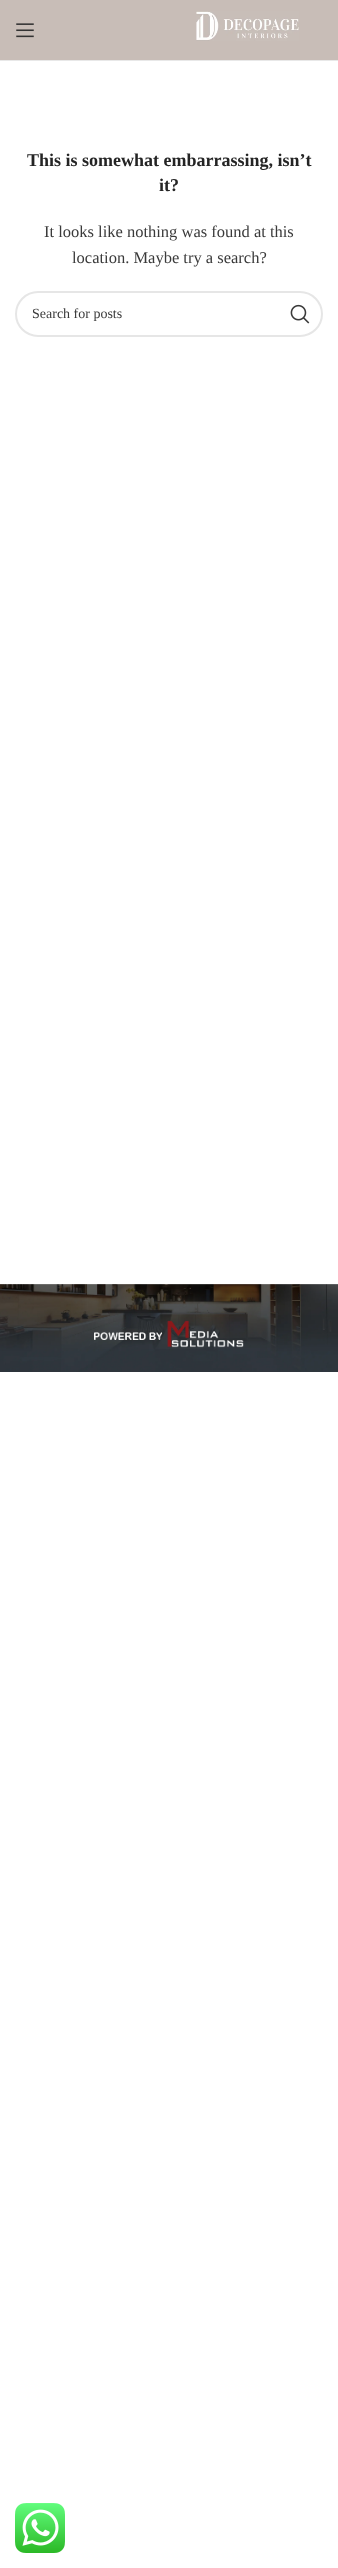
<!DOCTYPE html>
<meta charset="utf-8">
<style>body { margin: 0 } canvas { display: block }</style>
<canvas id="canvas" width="338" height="2568"></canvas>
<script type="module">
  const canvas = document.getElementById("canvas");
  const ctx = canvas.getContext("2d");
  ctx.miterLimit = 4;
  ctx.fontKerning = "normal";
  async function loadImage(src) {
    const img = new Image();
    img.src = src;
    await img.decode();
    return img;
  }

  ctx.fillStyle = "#ffffff";
  ctx.fillRect(0, 0, 338, 2568);
  ctx.fillStyle = "#c8bdb7";
  ctx.fillRect(0, 0, 338, 60);
  ctx.fillStyle = "#e8e8e8";
  ctx.fillRect(0, 60, 338, 1);
  ctx.drawImage(await loadImage("img1.png"), 16, 23, 18, 15);
  ctx.drawImage(await loadImage("img2.png"), 196, 11, 103, 30);
  ctx.font = "bold 18px Liberation Serif";
  ctx.fillStyle = "#242424";
  ctx.fillText("This is somewhat embarrassing, isn’t", 27, 166);
  ctx.fillText("it?", 159, 191);
  ctx.font = "16.5px Liberation Serif";
  ctx.fillStyle = "#3a3a3a";
  ctx.fillText("It looks like nothing was found at this", 44, 237);
  ctx.fillText("location. Maybe try a search?", 72, 263);
  ctx.beginPath();
  ctx.roundRect(16, 292, 306, 44, 22);
  ctx.strokeStyle = "#e6e6e6";
  ctx.lineWidth = 2;
  ctx.stroke();
  ctx.font = "14px Liberation Serif";
  ctx.fillText("Search for posts", 32, 318);
  ctx.drawImage(await loadImage("img3.png"), 290, 304, 20, 20);
  ctx.drawImage(await loadImage("img4.png"), 0, 1284, 338, 88);
  ctx.fillStyle = "rgba(255, 255, 255, 0.15)";
  ctx.fillRect(0, 1284, 338, 1);
  ctx.drawImage(await loadImage("img5.png"), 94, 1320, 150, 28);
  ctx.drawImage(await loadImage("img6.png"), 15, 2503, 50, 50);
</script>
